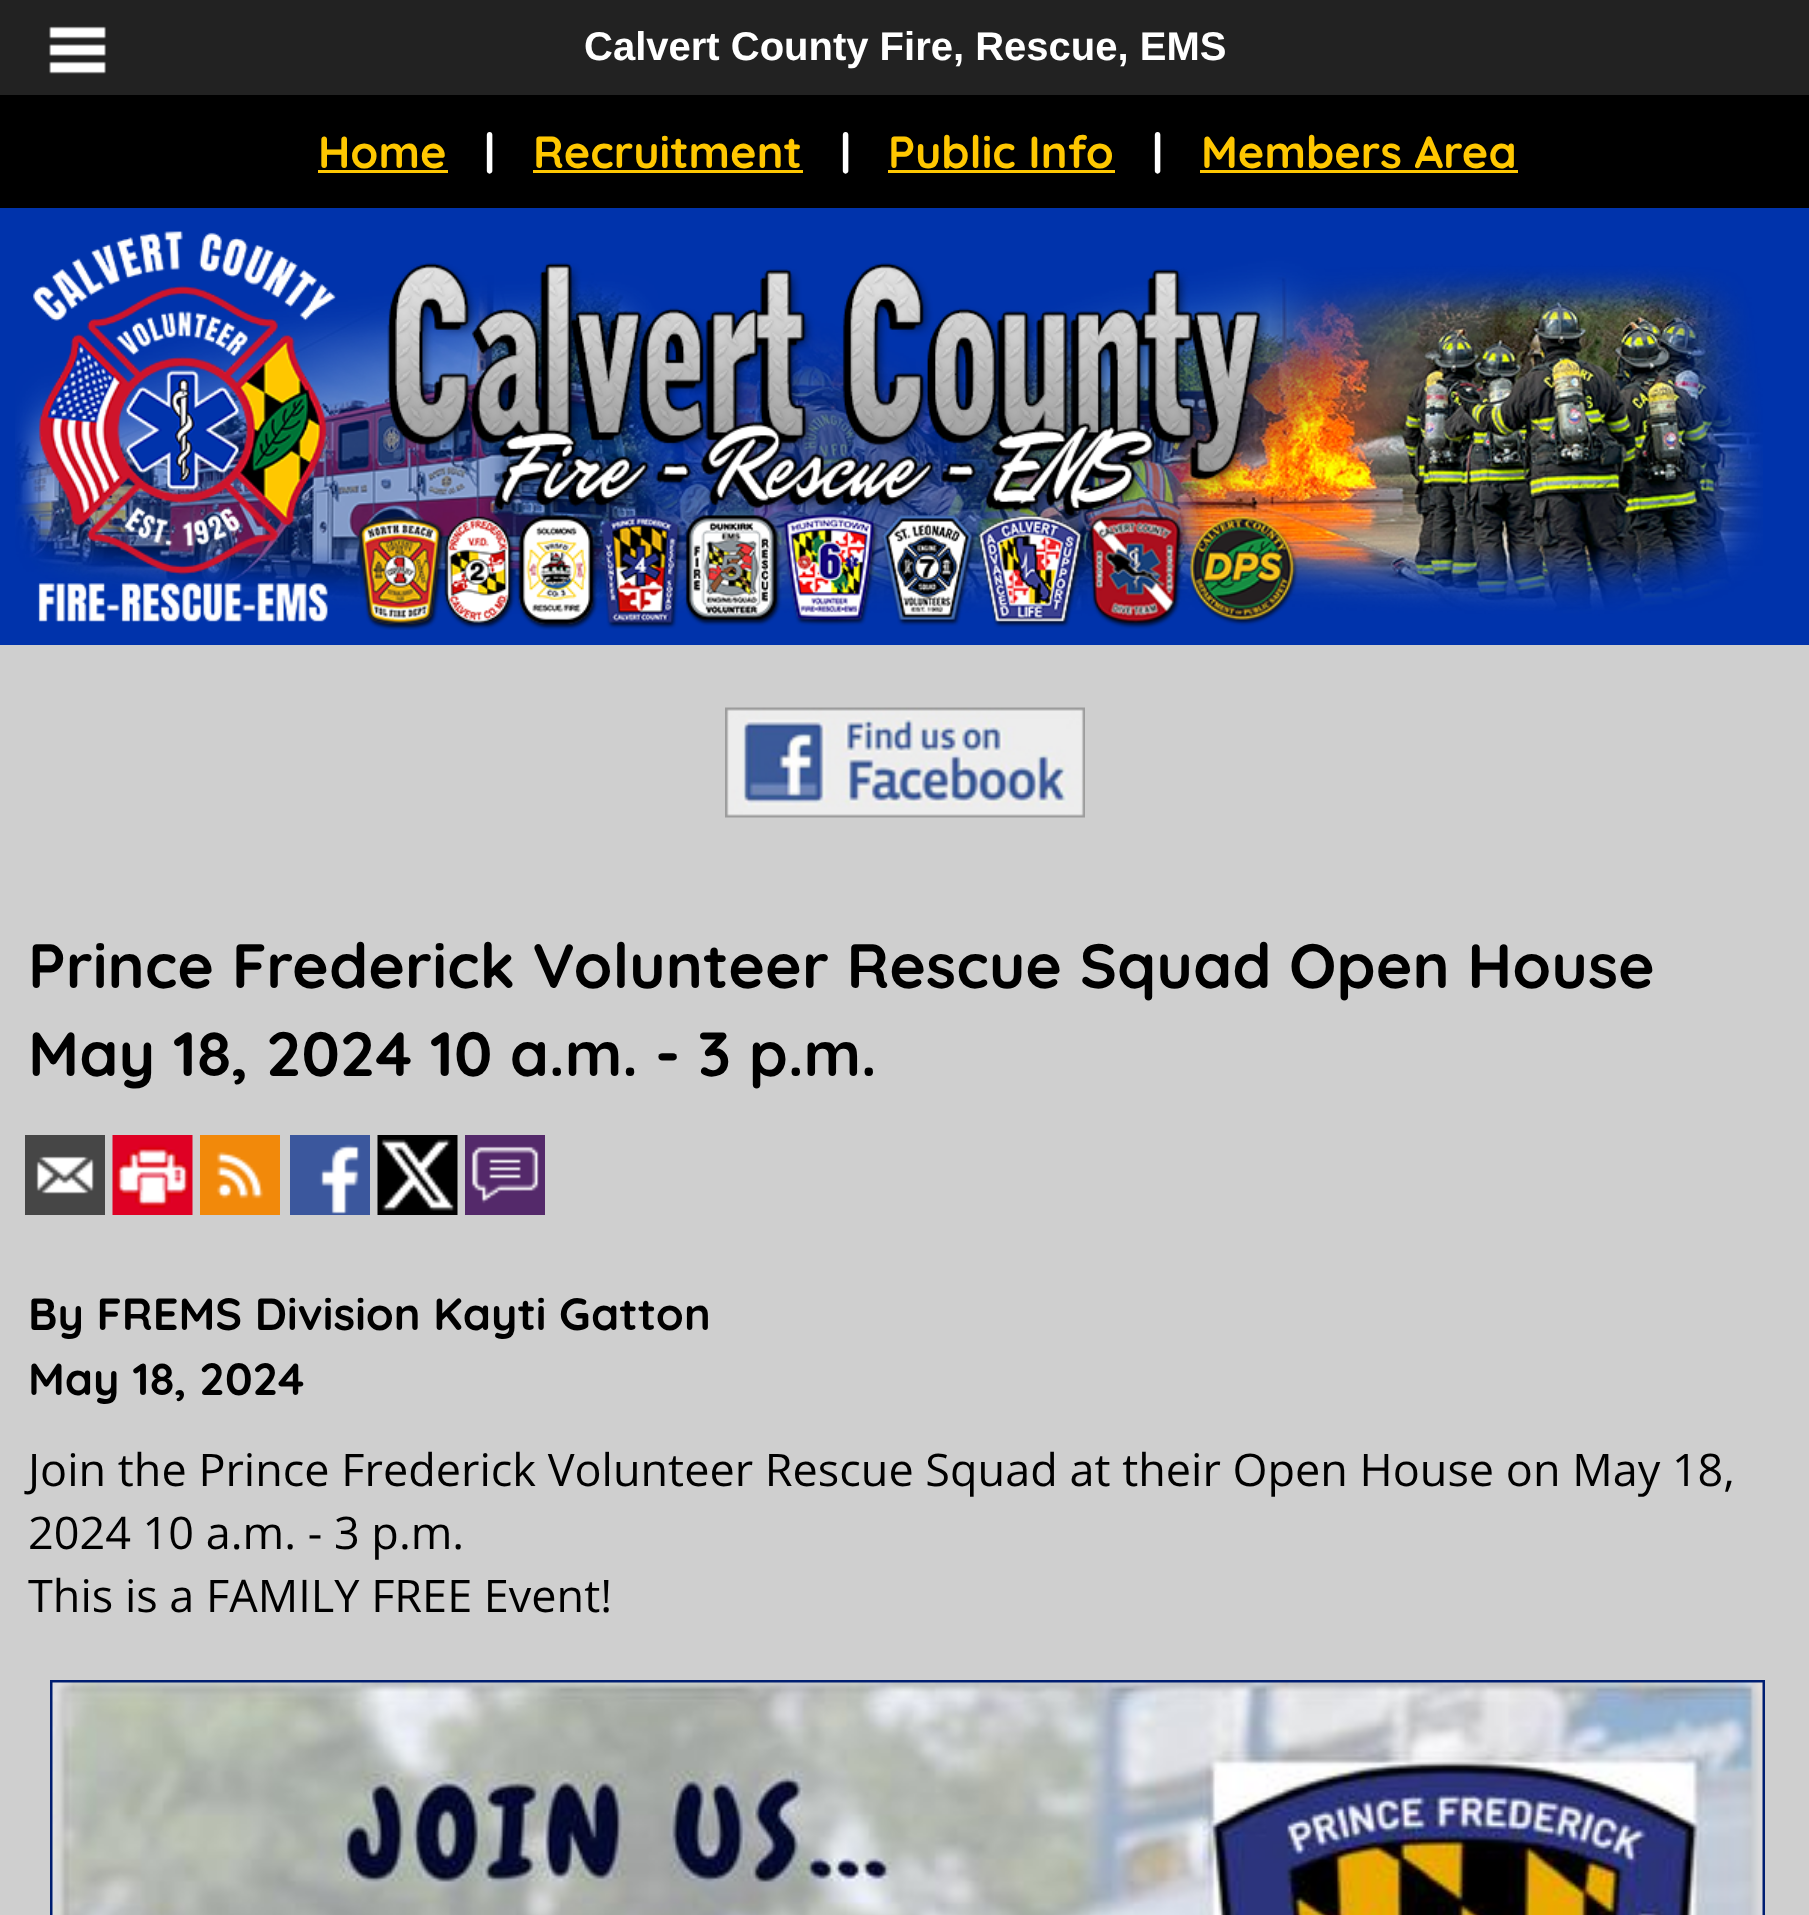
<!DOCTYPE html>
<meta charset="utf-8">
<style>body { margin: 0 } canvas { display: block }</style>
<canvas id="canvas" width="1809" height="1915"></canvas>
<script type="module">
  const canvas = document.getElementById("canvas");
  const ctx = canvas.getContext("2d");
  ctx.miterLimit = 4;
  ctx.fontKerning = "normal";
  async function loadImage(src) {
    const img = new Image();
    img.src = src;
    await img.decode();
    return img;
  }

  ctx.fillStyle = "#cfcfcf";
  ctx.fillRect(0, 0, 1809, 1915);
  ctx.fillStyle = "#222222";
  ctx.fillRect(0, 0, 1809, 95);
  ctx.drawImage(await loadImage("img1.png"), 49, 26, 57, 48);
  ctx.font = "bold 40px Liberation Sans";
  ctx.fillStyle = "#ffffff";
  ctx.fillText("Calvert County Fire, Rescue, EMS", 584, 60);
  ctx.fillStyle = "#000000";
  ctx.fillRect(0, 95, 1809, 113);
  ctx.font = "bold 45px Quicksand";
  ctx.fillStyle = "#ffc700";
  ctx.fillText("Home", 318, 168);
  ctx.fillRect(318, 170, 130, 3);
  ctx.fillStyle = "#ffffff";
  ctx.fillText("|", 484, 168);
  ctx.fillStyle = "#ffc700";
  ctx.fillText("Recruitment", 533, 168);
  ctx.fillRect(533, 170, 270, 3);
  ctx.fillStyle = "#ffffff";
  ctx.fillText("|", 840, 168);
  ctx.fillStyle = "#ffc700";
  ctx.fillText("Public Info", 888, 168);
  ctx.fillRect(888, 170, 227, 3);
  ctx.fillStyle = "#ffffff";
  ctx.fillText("|", 1152, 168);
  ctx.fillStyle = "#ffc700";
  ctx.fillText("Members Area", 1201, 168);
  ctx.fillRect(1200, 170, 318, 3);
  ctx.fillStyle = "#0033ab";
  ctx.fillRect(0, 208, 1809, 437);
  ctx.drawImage(await loadImage("img2.png"), 15, 231, 1748, 399);
  ctx.drawImage(await loadImage("img3.png"), 725, 707, 360, 111);
  ctx.font = "bold 62.5px Quicksand";
  ctx.fillStyle = "#000000";
  ctx.fillText("Prince Frederick Volunteer Rescue Squad Open House", 28, 988);
  ctx.fillText("May 18, 2024 10 a.m. - 3 p.m.", 28, 1076);
  ctx.drawImage(await loadImage("img4.png"), 25, 1135, 80, 80);
  ctx.drawImage(await loadImage("img5.png"), 112, 1135, 81, 80);
  ctx.drawImage(await loadImage("img6.png"), 200, 1135, 80, 80);
  ctx.drawImage(await loadImage("img7.png"), 290, 1135, 80, 80);
  ctx.drawImage(await loadImage("img8.png"), 377, 1135, 81, 80);
  ctx.drawImage(await loadImage("img9.png"), 465, 1135, 80, 80);
  ctx.font = "bold 45px Quicksand";
  ctx.fillText("By FREMS Division Kayti Gatton", 28, 1330);
  ctx.fillText("May 18, 2024", 28, 1395);
  ctx.font = "45px Open Sans";
  ctx.fillText("Join the Prince Frederick Volunteer Rescue Squad at their Open House on May 18,", 28, 1486);
  ctx.fillText("2024 10 a.m. - 3 p.m.", 28, 1549);
  ctx.fillText("This is a FAMILY FREE Event!", 28, 1612);
  ctx.strokeStyle = "#001e72";
  ctx.lineWidth = 3;
  ctx.strokeRect(51.5, 1681.5, 1712, 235);
  ctx.drawImage(await loadImage("img10.png"), 52, 1682, 1711, 233);
</script>
